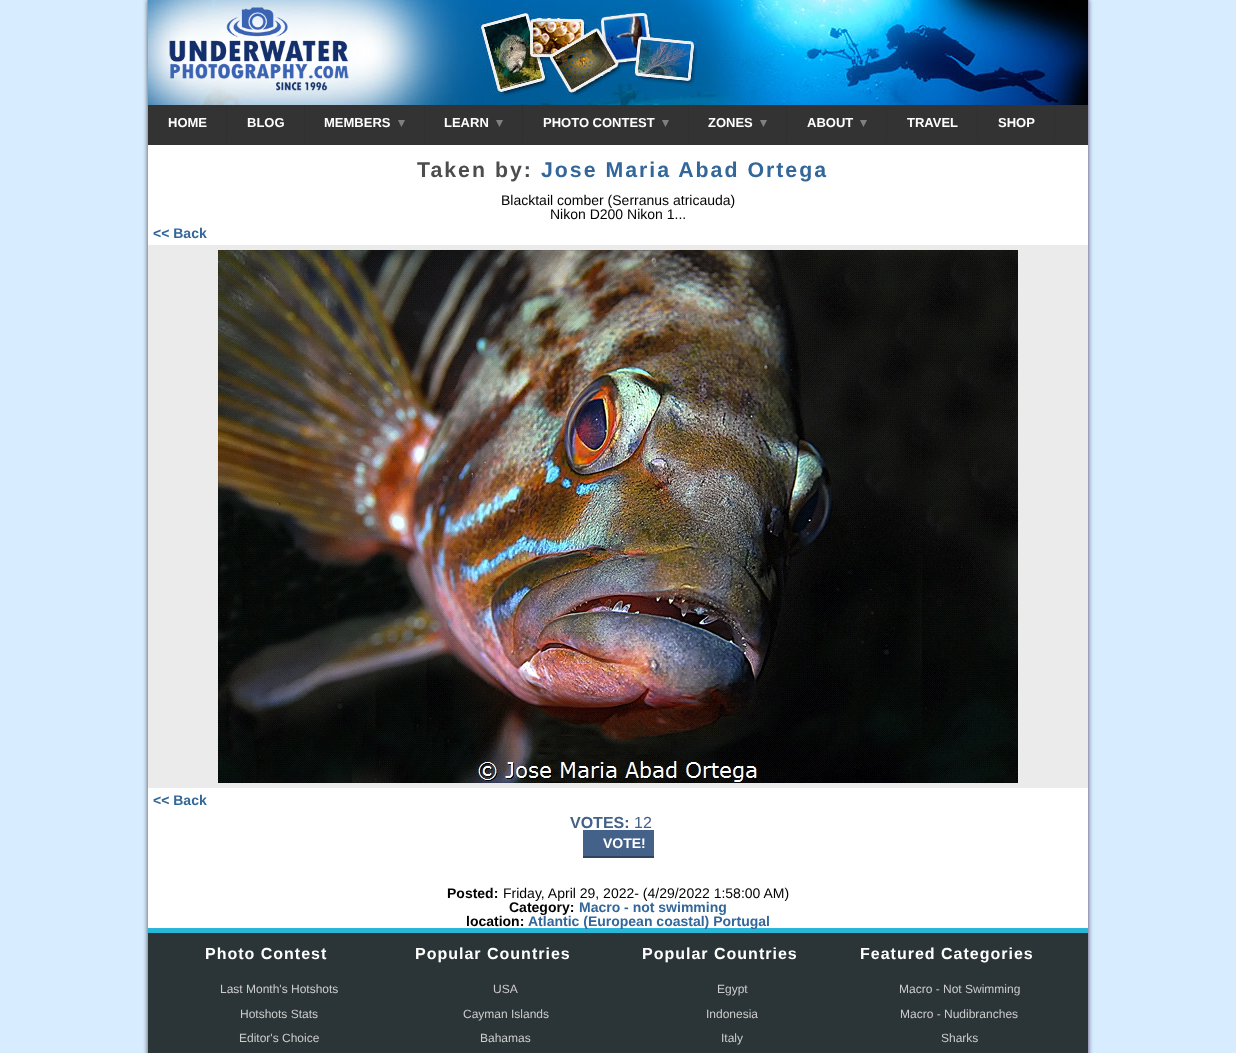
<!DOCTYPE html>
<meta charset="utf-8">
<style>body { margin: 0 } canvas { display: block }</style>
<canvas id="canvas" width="1236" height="1053"></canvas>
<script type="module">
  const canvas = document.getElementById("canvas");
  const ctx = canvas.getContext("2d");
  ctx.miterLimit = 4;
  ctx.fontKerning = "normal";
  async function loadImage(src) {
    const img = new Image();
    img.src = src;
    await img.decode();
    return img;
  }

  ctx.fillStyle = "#d8ecff";
  ctx.fillRect(0, 0, 1236, 1053);
  ctx.fillStyle = "rgba(0, 0, 0, 0.5)";
  ctx.filter = "blur(2px)";
  ctx.beginPath();
  ctx.rect(147, 0, 942, 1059);
  ctx.fill();
  ctx.filter = "none";
  ctx.fillStyle = "#ffffff";
  ctx.fillRect(148, 145, 940, 783);
  ctx.fillStyle = "#9e9ec3";
  ctx.fillRect(1088, 0, 1, 1053);
  ctx.fillRect(147, 0, 1, 1053);
  ctx.drawImage(await loadImage("img1.png"), 148, 0, 940, 105);
  ctx.drawImage(await loadImage("img2.png"), 169, 7, 180, 84);
  ctx.fillStyle = "#333333";
  ctx.fillRect(148, 105, 940, 40);
  ctx.fillStyle = "#303030";
  ctx.fillRect(226, 105, 1, 37);
  ctx.font = "bold 13px Liberation Sans";
  ctx.fillStyle = "#ffffff";
  ctx.fillText("HOME", 168, 127);
  ctx.fillStyle = "#303030";
  ctx.fillRect(304, 105, 1, 37);
  ctx.fillStyle = "#ffffff";
  ctx.fillText("BLOG", 247, 127);
  ctx.fillStyle = "#303030";
  ctx.fillRect(424, 105, 1, 37);
  ctx.fillStyle = "#ffffff";
  ctx.fillText("MEMBERS", 324, 127);
  ctx.font = "bold 13px DejaVu Sans";
  ctx.fillStyle = "#808080";
  ctx.fillText("▾", 398, 127);
  ctx.fillStyle = "#303030";
  ctx.fillRect(522, 105, 1, 37);
  ctx.font = "bold 13px Liberation Sans";
  ctx.fillStyle = "#ffffff";
  ctx.fillText("LEARN", 444, 127);
  ctx.font = "bold 13px DejaVu Sans";
  ctx.fillStyle = "#808080";
  ctx.fillText("▾", 496, 127);
  ctx.fillStyle = "#303030";
  ctx.fillRect(688, 105, 1, 37);
  ctx.font = "bold 13px Liberation Sans";
  ctx.fillStyle = "#ffffff";
  ctx.fillText("PHOTO CONTEST", 543, 127);
  ctx.font = "bold 13px DejaVu Sans";
  ctx.fillStyle = "#808080";
  ctx.fillText("▾", 662, 127);
  ctx.fillStyle = "#303030";
  ctx.fillRect(786, 105, 1, 37);
  ctx.font = "bold 13px Liberation Sans";
  ctx.fillStyle = "#ffffff";
  ctx.fillText("ZONES", 708, 127);
  ctx.font = "bold 13px DejaVu Sans";
  ctx.fillStyle = "#808080";
  ctx.fillText("▾", 760, 127);
  ctx.fillStyle = "#303030";
  ctx.fillRect(886, 105, 1, 37);
  ctx.font = "bold 13px Liberation Sans";
  ctx.fillStyle = "#ffffff";
  ctx.fillText("ABOUT", 807, 127);
  ctx.font = "bold 13px DejaVu Sans";
  ctx.fillStyle = "#808080";
  ctx.fillText("▾", 860, 127);
  ctx.fillStyle = "#303030";
  ctx.fillRect(977, 105, 1, 37);
  ctx.font = "bold 13px Liberation Sans";
  ctx.fillStyle = "#ffffff";
  ctx.fillText("TRAVEL", 907, 127);
  ctx.fillStyle = "#303030";
  ctx.fillRect(1054, 105, 1, 37);
  ctx.fillStyle = "#ffffff";
  ctx.fillText("SHOP", 998, 127);
  ctx.letterSpacing = "2px";
  ctx.font = "bold 21.3px Liberation Sans";
  ctx.fillStyle = "#4d4d4d";
  ctx.fillText("Taken by:", 417, 177);
  ctx.fillStyle = "#336699";
  ctx.fillText("Jose Maria Abad Ortega", 541, 177);
  ctx.letterSpacing = "0px";
  ctx.font = "14px Liberation Sans";
  ctx.fillStyle = "#000000";
  ctx.fillText("Blacktail comber (Serranus atricauda)", 501, 205);
  ctx.fillText("Nikon D200 Nikon 1...", 550, 219);
  ctx.font = "bold 14px Liberation Sans";
  ctx.fillStyle = "#336699";
  ctx.fillText("<< Back", 153, 238);
  ctx.fillStyle = "#ebebeb";
  ctx.fillRect(148, 245, 940, 543);
  ctx.drawImage(await loadImage("img3.png"), 218, 250, 800, 533);
  ctx.fillStyle = "#336699";
  ctx.fillText("<< Back", 153, 805);
  ctx.font = "bold 16px Liberation Sans";
  ctx.fillStyle = "#446189";
  ctx.fillText("VOTES:", 570, 828);
  ctx.font = "16px Liberation Sans";
  ctx.fillText("12", 634, 828);
  ctx.fillRect(583, 830, 71, 26);
  ctx.fillStyle = "#2f425e";
  ctx.fillRect(583, 856, 71, 2);
  ctx.font = "bold 14px Liberation Sans";
  ctx.fillStyle = "#ffffff";
  ctx.fillText("VOTE!", 603, 848);
  ctx.fillStyle = "#000000";
  ctx.fillText("Posted:", 447, 898);
  ctx.font = "14px Liberation Sans";
  ctx.fillText("Friday, April 29, 2022- (4/29/2022 1:58:00 AM)", 503, 898);
  ctx.font = "bold 14px Liberation Sans";
  ctx.fillText("Category:", 509, 912);
  ctx.fillStyle = "#336699";
  ctx.fillText("Macro - not swimming", 579, 912);
  ctx.fillStyle = "#000000";
  ctx.fillText("location:", 466, 926);
  ctx.fillStyle = "#2ab6d6";
  ctx.fillRect(148, 928, 940, 5);
  ctx.fillStyle = "#336699";
  ctx.fillText("Atlantic (European coastal) Portugal", 528, 926);
  ctx.fillStyle = "#2b3437";
  ctx.fillRect(148, 933, 940, 120);
  ctx.letterSpacing = "1px";
  ctx.font = "bold 16px Liberation Sans";
  ctx.fillStyle = "#ffffff";
  ctx.fillText("Photo Contest", 205, 959);
  ctx.letterSpacing = "0px";
  ctx.font = "12px Liberation Sans";
  ctx.fillStyle = "#cccccc";
  ctx.fillText("Last Month's Hotshots", 220, 993);
  ctx.fillText("Hotshots Stats", 240, 1018);
  ctx.fillText("Editor's Choice", 239, 1042);
  ctx.letterSpacing = "1px";
  ctx.font = "bold 16px Liberation Sans";
  ctx.fillStyle = "#ffffff";
  ctx.fillText("Popular Countries", 415, 959);
  ctx.letterSpacing = "0px";
  ctx.font = "12px Liberation Sans";
  ctx.fillStyle = "#cccccc";
  ctx.fillText("USA", 493, 993);
  ctx.fillText("Cayman Islands", 463, 1018);
  ctx.fillText("Bahamas", 480, 1042);
  ctx.letterSpacing = "1px";
  ctx.font = "bold 16px Liberation Sans";
  ctx.fillStyle = "#ffffff";
  ctx.fillText("Popular Countries", 642, 959);
  ctx.letterSpacing = "0px";
  ctx.font = "12px Liberation Sans";
  ctx.fillStyle = "#cccccc";
  ctx.fillText("Egypt", 717, 993);
  ctx.fillText("Indonesia", 706, 1018);
  ctx.fillText("Italy", 721, 1042);
  ctx.letterSpacing = "1px";
  ctx.font = "bold 16px Liberation Sans";
  ctx.fillStyle = "#ffffff";
  ctx.fillText("Featured Categories", 860, 959);
  ctx.letterSpacing = "0px";
  ctx.font = "12px Liberation Sans";
  ctx.fillStyle = "#cccccc";
  ctx.fillText("Macro - Not Swimming", 899, 993);
  ctx.fillText("Macro - Nudibranches", 900, 1018);
  ctx.fillText("Sharks", 941, 1042);
</script>
